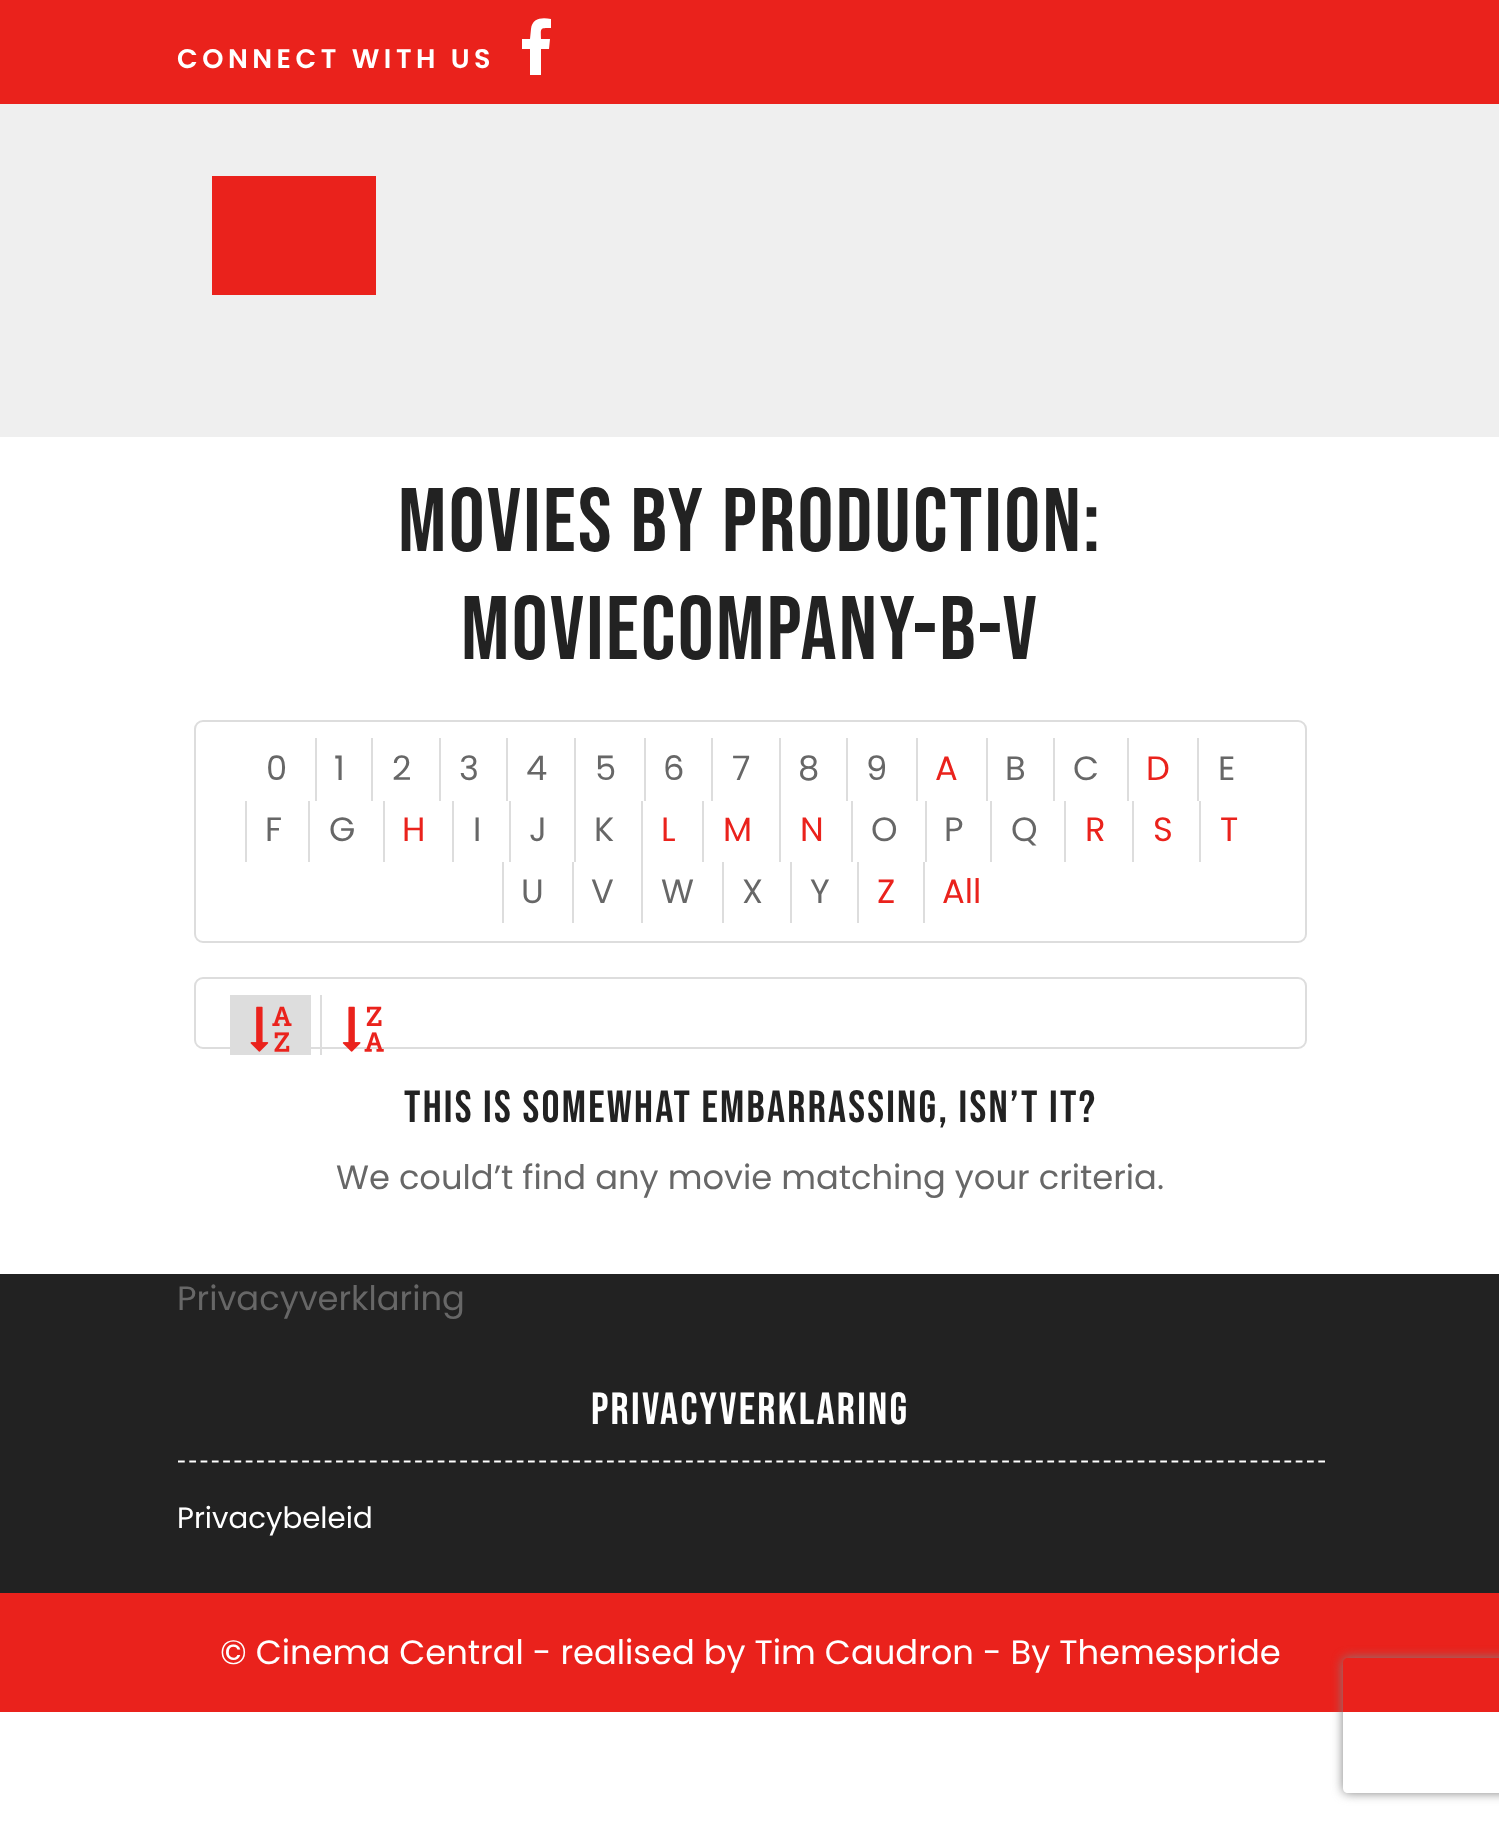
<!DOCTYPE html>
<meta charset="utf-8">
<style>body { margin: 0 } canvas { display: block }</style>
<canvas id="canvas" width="1499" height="1824"></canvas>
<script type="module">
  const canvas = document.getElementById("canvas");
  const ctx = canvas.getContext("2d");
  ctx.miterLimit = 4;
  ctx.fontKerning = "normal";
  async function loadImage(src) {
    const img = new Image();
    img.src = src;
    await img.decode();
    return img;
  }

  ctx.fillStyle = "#ffffff";
  ctx.fillRect(0, 0, 1499, 1824);
  ctx.fillStyle = "#ea221c";
  ctx.fillRect(0, 0, 1499, 104);
  ctx.letterSpacing = "4.5px";
  ctx.font = "600 27px Poppins";
  ctx.fillStyle = "#ffffff";
  ctx.fillText("CONNECT WITH US", 177, 68);
  ctx.beginPath();
  ctx.moveTo(530, 75);
  ctx.lineTo(530, 49);
  ctx.lineTo(522, 49);
  ctx.lineTo(522, 39);
  ctx.lineTo(530, 39);
  ctx.lineTo(531, 29);
  ctx.bezierCurveTo(532, 18, 542, 17, 551, 19);
  ctx.lineTo(551, 28);
  ctx.bezierCurveTo(539, 28, 541, 28, 541, 39);
  ctx.lineTo(550, 39);
  ctx.lineTo(549, 49);
  ctx.lineTo(541, 49);
  ctx.lineTo(541, 75);
  ctx.closePath();
  ctx.fill();
  ctx.fillStyle = "#efefef";
  ctx.fillRect(0, 104, 1499, 333);
  ctx.fillStyle = "#ea221c";
  ctx.fillRect(212, 176, 164, 119);
  ctx.letterSpacing = "2.25px";
  ctx.font = "90px Bebas Neue";
  ctx.fillStyle = "#222222";
  ctx.fillText("Movies by Production:", 398, 551);
  ctx.fillText("moviecompany-b-v", 461, 659);
  ctx.beginPath();
  ctx.roundRect(195, 721, 1111, 221, 8);
  ctx.strokeStyle = "#dddddd";
  ctx.lineWidth = 2;
  ctx.stroke();
  ctx.letterSpacing = "0px";
  ctx.font = "33.75px Poppins";
  ctx.fillStyle = "#676767";
  ctx.fillText("0", 266, 780);
  ctx.fillStyle = "#dddddd";
  ctx.fillRect(315, 738, 2, 63);
  ctx.fillStyle = "#676767";
  ctx.fillText("1", 334, 780);
  ctx.fillStyle = "#dddddd";
  ctx.fillRect(371, 738, 2, 63);
  ctx.fillStyle = "#676767";
  ctx.fillText("2", 392, 780);
  ctx.fillStyle = "#dddddd";
  ctx.fillRect(439, 738, 2, 63);
  ctx.fillStyle = "#676767";
  ctx.fillText("3", 459, 780);
  ctx.fillStyle = "#dddddd";
  ctx.fillRect(506, 738, 2, 63);
  ctx.fillStyle = "#676767";
  ctx.fillText("4", 526, 780);
  ctx.fillStyle = "#dddddd";
  ctx.fillRect(574, 738, 2, 124);
  ctx.fillStyle = "#676767";
  ctx.fillText("5", 595, 780);
  ctx.fillStyle = "#dddddd";
  ctx.fillRect(644, 738, 2, 63);
  ctx.fillStyle = "#676767";
  ctx.fillText("6", 663, 780);
  ctx.fillStyle = "#dddddd";
  ctx.fillRect(711, 738, 2, 63);
  ctx.fillStyle = "#676767";
  ctx.fillText("7", 732, 780);
  ctx.fillStyle = "#dddddd";
  ctx.fillRect(779, 738, 2, 124);
  ctx.fillStyle = "#676767";
  ctx.fillText("8", 798, 780);
  ctx.fillStyle = "#dddddd";
  ctx.fillRect(846, 738, 2, 63);
  ctx.fillStyle = "#676767";
  ctx.fillText("9", 866, 780);
  ctx.fillStyle = "#dddddd";
  ctx.fillRect(916, 738, 2, 63);
  ctx.fillStyle = "#ea221c";
  ctx.fillText("A", 935, 780);
  ctx.fillStyle = "#dddddd";
  ctx.fillRect(986, 738, 2, 63);
  ctx.fillStyle = "#676767";
  ctx.fillText("B", 1005, 780);
  ctx.fillStyle = "#dddddd";
  ctx.fillRect(1053, 738, 2, 63);
  ctx.fillStyle = "#676767";
  ctx.fillText("C", 1073, 780);
  ctx.fillStyle = "#dddddd";
  ctx.fillRect(1127, 738, 2, 63);
  ctx.fillStyle = "#ea221c";
  ctx.fillText("D", 1146, 780);
  ctx.fillStyle = "#dddddd";
  ctx.fillRect(1197, 738, 2, 63);
  ctx.fillStyle = "#676767";
  ctx.fillText("E", 1218, 780);
  ctx.fillStyle = "#dddddd";
  ctx.fillRect(245, 801, 2, 61);
  ctx.fillStyle = "#676767";
  ctx.fillText("F", 265, 841);
  ctx.fillStyle = "#dddddd";
  ctx.fillRect(308, 801, 2, 61);
  ctx.fillStyle = "#676767";
  ctx.fillText("G", 329, 841);
  ctx.fillStyle = "#dddddd";
  ctx.fillRect(383, 801, 2, 61);
  ctx.fillStyle = "#ea221c";
  ctx.fillText("H", 402, 841);
  ctx.fillStyle = "#dddddd";
  ctx.fillRect(452, 801, 2, 61);
  ctx.fillStyle = "#676767";
  ctx.fillText("I", 473, 841);
  ctx.fillStyle = "#dddddd";
  ctx.fillRect(509, 801, 2, 61);
  ctx.fillStyle = "#676767";
  ctx.fillText("J", 529, 841);
  ctx.fillText("K", 594, 841);
  ctx.fillStyle = "#dddddd";
  ctx.fillRect(641, 801, 2, 122);
  ctx.fillStyle = "#ea221c";
  ctx.fillText("L", 661, 841);
  ctx.fillStyle = "#dddddd";
  ctx.fillRect(702, 801, 2, 61);
  ctx.fillStyle = "#ea221c";
  ctx.fillText("M", 723, 841);
  ctx.fillText("N", 800, 841);
  ctx.fillStyle = "#dddddd";
  ctx.fillRect(851, 801, 2, 61);
  ctx.fillStyle = "#676767";
  ctx.fillText("O", 871, 841);
  ctx.fillStyle = "#dddddd";
  ctx.fillRect(925, 801, 2, 61);
  ctx.fillStyle = "#676767";
  ctx.fillText("P", 944, 841);
  ctx.fillStyle = "#dddddd";
  ctx.fillRect(990, 801, 2, 61);
  ctx.fillStyle = "#676767";
  ctx.fillText("Q", 1011, 841);
  ctx.fillStyle = "#dddddd";
  ctx.fillRect(1064, 801, 2, 61);
  ctx.fillStyle = "#ea221c";
  ctx.fillText("R", 1085, 841);
  ctx.fillStyle = "#dddddd";
  ctx.fillRect(1132, 801, 2, 61);
  ctx.fillStyle = "#ea221c";
  ctx.fillText("S", 1153, 841);
  ctx.fillStyle = "#dddddd";
  ctx.fillRect(1199, 801, 2, 61);
  ctx.fillStyle = "#ea221c";
  ctx.fillText("T", 1220, 841);
  ctx.fillStyle = "#dddddd";
  ctx.fillRect(502, 862, 2, 61);
  ctx.fillStyle = "#676767";
  ctx.fillText("U", 521, 903);
  ctx.fillStyle = "#dddddd";
  ctx.fillRect(572, 862, 2, 61);
  ctx.fillStyle = "#676767";
  ctx.fillText("V", 591, 903);
  ctx.fillText("W", 661, 903);
  ctx.fillStyle = "#dddddd";
  ctx.fillRect(722, 862, 2, 61);
  ctx.fillStyle = "#676767";
  ctx.fillText("X", 742, 903);
  ctx.fillStyle = "#dddddd";
  ctx.fillRect(790, 862, 2, 61);
  ctx.fillStyle = "#676767";
  ctx.fillText("Y", 810, 903);
  ctx.fillStyle = "#dddddd";
  ctx.fillRect(857, 862, 2, 61);
  ctx.fillStyle = "#ea221c";
  ctx.fillText("Z", 877, 903);
  ctx.fillStyle = "#dddddd";
  ctx.fillRect(923, 862, 2, 61);
  ctx.fillStyle = "#ea221c";
  ctx.fillText("All", 942, 903);
  ctx.beginPath();
  ctx.roundRect(195, 978, 1111, 70, 8);
  ctx.stroke();
  ctx.fillStyle = "#dddddd";
  ctx.fillRect(230, 995, 81, 60);
  ctx.drawImage(await loadImage("img1.png"), 250, 1006, 42, 46);
  ctx.fillRect(320, 995, 2, 60);
  ctx.drawImage(await loadImage("img2.png"), 342, 1006, 42, 46);
  ctx.letterSpacing = "2.25px";
  ctx.font = "45px Bebas Neue";
  ctx.fillStyle = "#222222";
  ctx.fillText("This is somewhat embarrassing, isn’t it?", 404, 1122);
  ctx.letterSpacing = "0px";
  ctx.font = "33.75px Poppins";
  ctx.fillStyle = "#676767";
  ctx.fillText("We could’t find any movie matching your criteria.", 336, 1189);
  ctx.fillStyle = "#222222";
  ctx.fillRect(0, 1274, 1499, 319);
  ctx.fillStyle = "#676767";
  ctx.fillText("Privacyverklaring", 177, 1310);
  ctx.beginPath();
  ctx.moveTo(178, 1461.5);
  ctx.lineTo(1325, 1461.5);
  ctx.strokeStyle = "#ffffff";
  ctx.lineWidth = 2.2;
  ctx.setLineDash([6.75, 4.54]);
  ctx.stroke();
  ctx.letterSpacing = "2.25px";
  ctx.font = "45px Bebas Neue";
  ctx.fillStyle = "#ffffff";
  ctx.fillText("Privacyverklaring", 591, 1424);
  ctx.letterSpacing = "0px";
  ctx.font = "29.25px Poppins";
  ctx.fillText("Privacybeleid", 177, 1528);
  ctx.fillStyle = "#ea221c";
  ctx.fillRect(0, 1593, 1499, 119);
  ctx.font = "33.75px Poppins";
  ctx.fillStyle = "#ffffff";
  ctx.fillText("© Cinema Central - realised by Tim Caudron - By Themespride", 220, 1664);
  ctx.save();
  ctx.beginPath();
  ctx.moveTo(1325, 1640);
  ctx.lineTo(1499, 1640);
  ctx.lineTo(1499, 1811);
  ctx.lineTo(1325, 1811);
  ctx.closePath();
  ctx.moveTo(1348, 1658);
  ctx.lineTo(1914, 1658);
  ctx.bezierCurveTo(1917, 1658, 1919, 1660, 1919, 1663);
  ctx.lineTo(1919, 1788);
  ctx.bezierCurveTo(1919, 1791, 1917, 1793, 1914, 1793);
  ctx.lineTo(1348, 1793);
  ctx.bezierCurveTo(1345, 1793, 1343, 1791, 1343, 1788);
  ctx.lineTo(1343, 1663);
  ctx.bezierCurveTo(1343, 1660, 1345, 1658, 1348, 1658);
  ctx.closePath();
  ctx.clip("evenodd");
  ctx.fillStyle = "#808080";
  ctx.filter = "blur(5.5px)";
  ctx.beginPath();
  ctx.roundRect(1343, 1658, 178, 135, 5);
  ctx.fill();
  ctx.filter = "none";
  ctx.restore();
</script>
